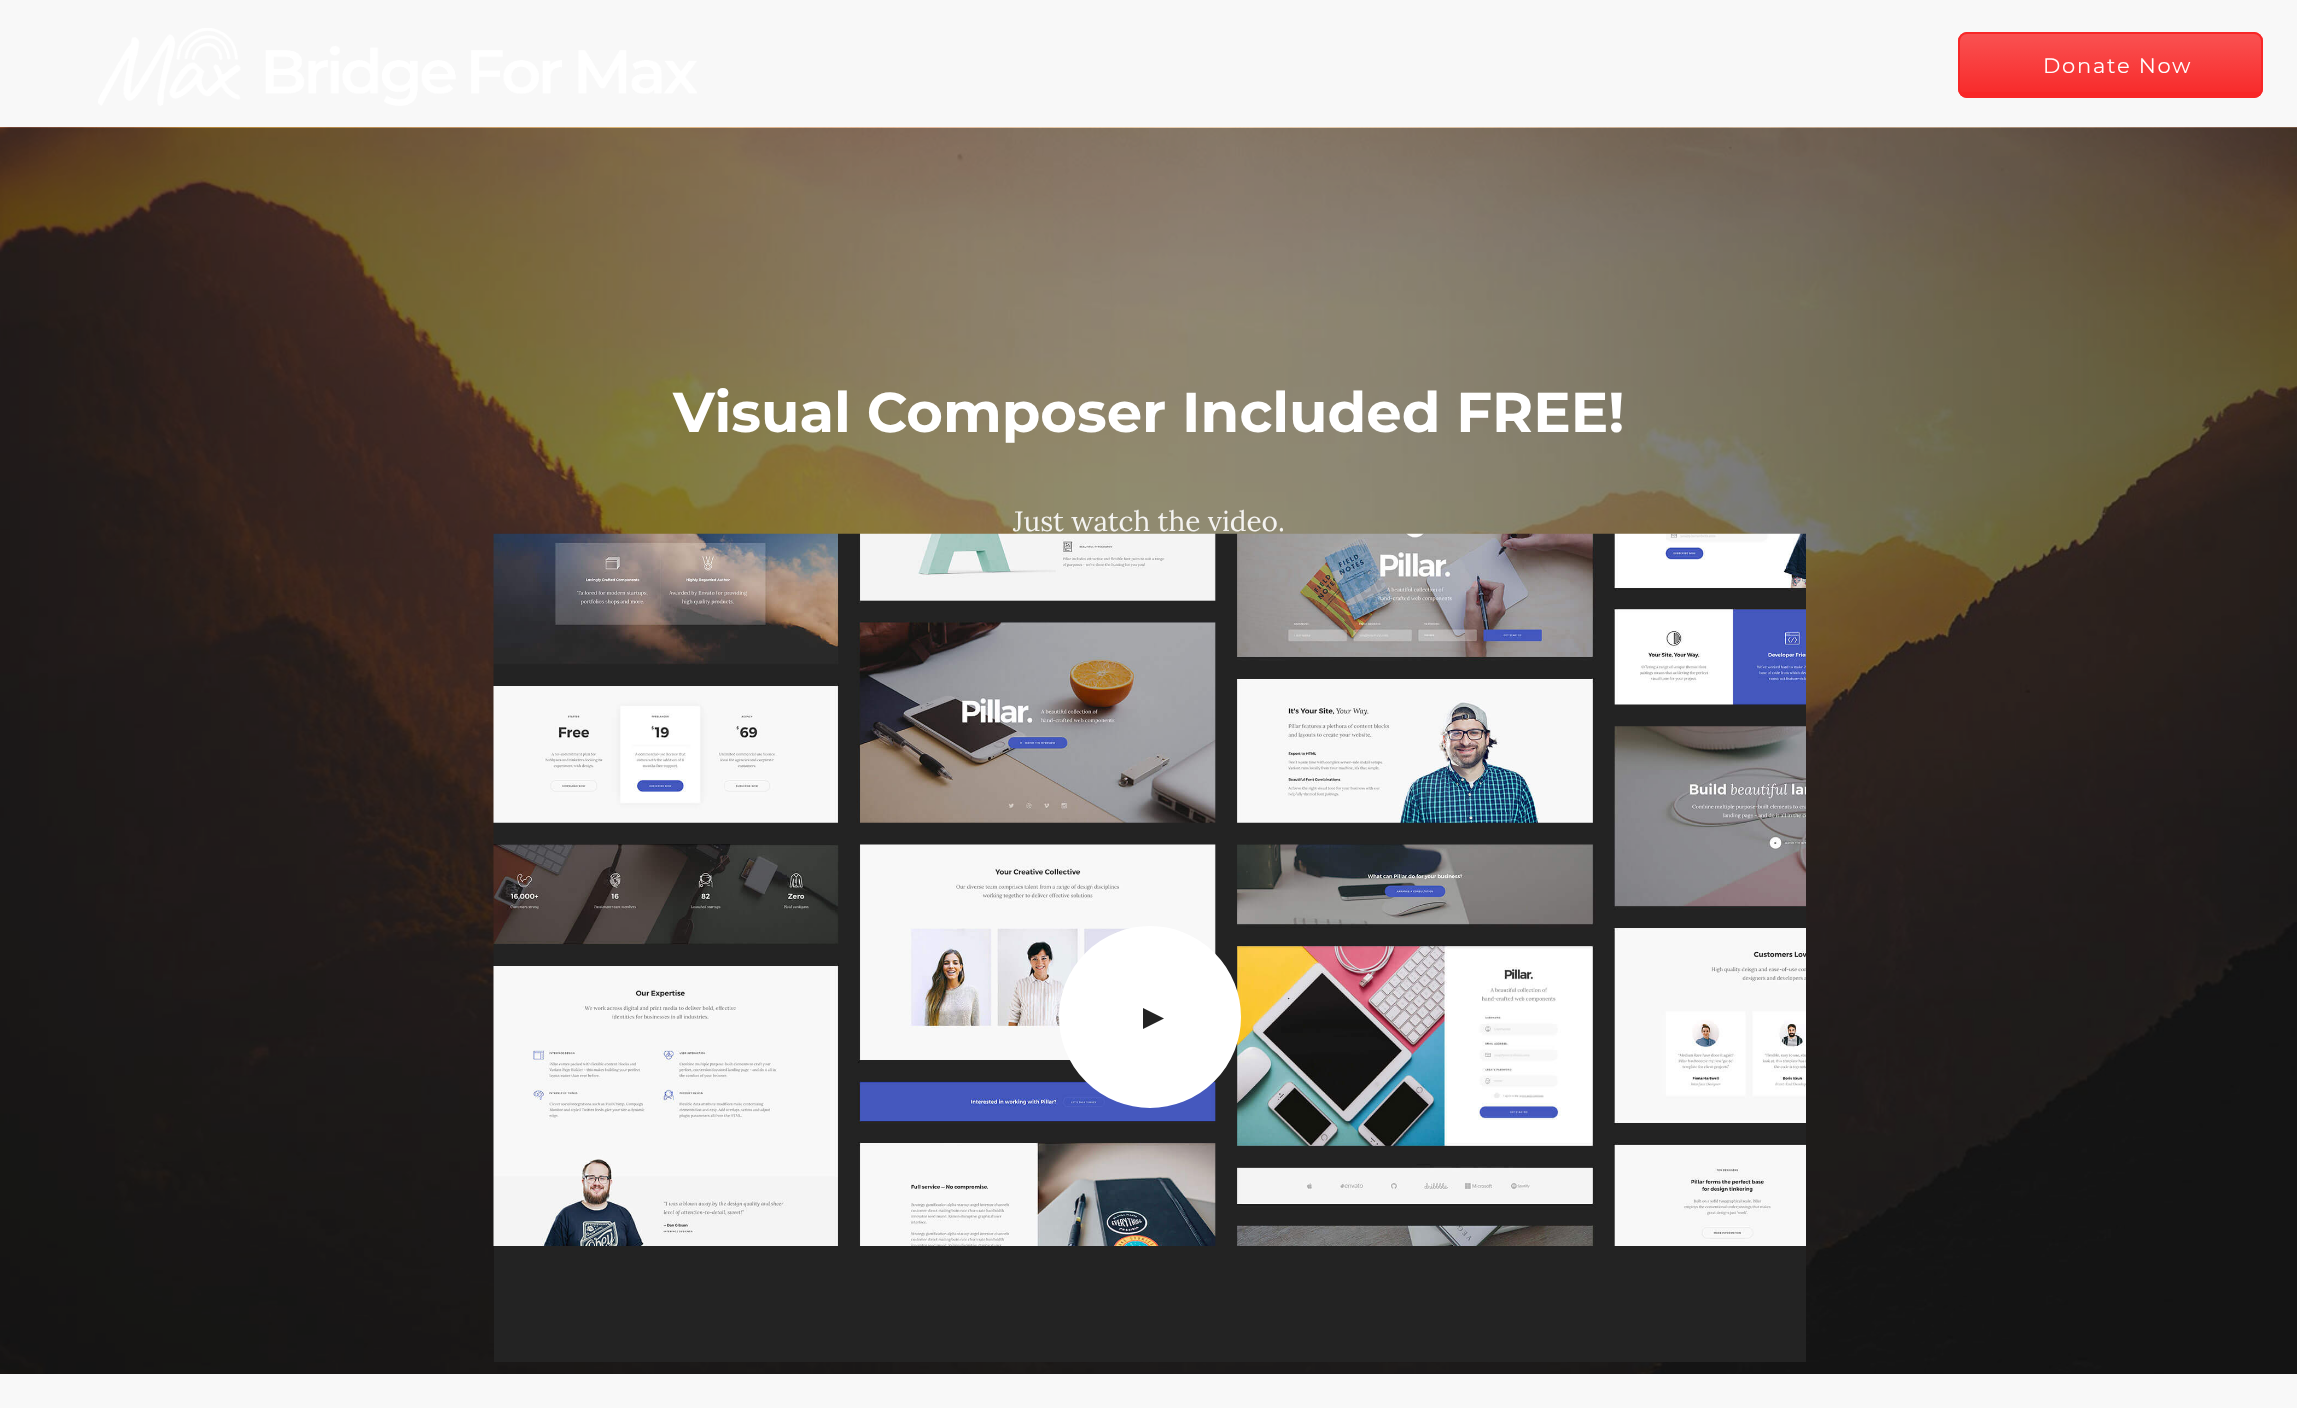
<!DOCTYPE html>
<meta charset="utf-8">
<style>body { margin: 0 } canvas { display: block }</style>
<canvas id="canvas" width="2297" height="1408"></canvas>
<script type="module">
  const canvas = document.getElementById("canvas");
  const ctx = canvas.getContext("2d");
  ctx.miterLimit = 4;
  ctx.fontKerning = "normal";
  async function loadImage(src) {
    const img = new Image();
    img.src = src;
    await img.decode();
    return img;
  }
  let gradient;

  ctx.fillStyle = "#f8f8f8";
  ctx.fillRect(0, 0, 2297, 1408);
  ctx.drawImage(await loadImage("img2.png"), 0, 127, 2297, 1247);
  ctx.fillStyle = "rgba(255, 255, 255, 0.1)";
  ctx.fillRect(0, 127, 2297, 1);
  ctx.drawImage(await loadImage("img1.png"), 98, 28, 599, 78);
  ctx.fillStyle = "#f82727";
  ctx.beginPath();
  ctx.roundRect(1958, 32, 305, 66, 9);
  ctx.fill();
  ctx.save();
  ctx.beginPath();
  ctx.roundRect(1958, 32, 305, 66, 9);
  ctx.clip();
  gradient = ctx.createLinearGradient(2111, 33, 2111, 96);
  gradient.addColorStop(0, "rgba(254, 254, 254, 0.2)");
  gradient.addColorStop(1, "rgba(254, 254, 254, 0.01)");
  ctx.fillStyle = gradient;
  ctx.fillRect(1958, 33, 305, 59);
  ctx.restore();
  ctx.beginPath();
  ctx.roundRect(1959, 33, 303, 64, 8);
  ctx.strokeStyle = "#f82727";
  ctx.lineWidth = 2;
  ctx.stroke();
  ctx.letterSpacing = "1.75px";
  ctx.font = "21px Montserrat";
  ctx.fillStyle = "#ffffff";
  ctx.fillText("Donate Now", 2043, 73);
  ctx.letterSpacing = "0px";
  ctx.font = "bold 56px Montserrat";
  ctx.fillText("Visual Composer Included FREE!", 673, 432);
  ctx.font = "28px Lora";
  ctx.fillStyle = "#f4f3f1";
  ctx.fillText("Just watch the video.", 1013, 531);
  ctx.drawImage(await loadImage("img3.png"), 493, 533, 1313, 713);
  ctx.fillStyle = "#ffffff";
  ctx.beginPath();
  ctx.arc(1150, 1017, 89, 0, Math.PI * 2);
  ctx.fill();
  ctx.strokeStyle = "#ffffff";
  ctx.lineWidth = 4;
  ctx.stroke();
  ctx.fillStyle = "#232323";
  ctx.beginPath();
  ctx.moveTo(1143, 1029);
  ctx.lineTo(1143, 1008);
  ctx.lineTo(1164, 1018.5);
  ctx.closePath();
  ctx.fill();
  ctx.fillRect(494, 1246, 1312, 116);
</script>
